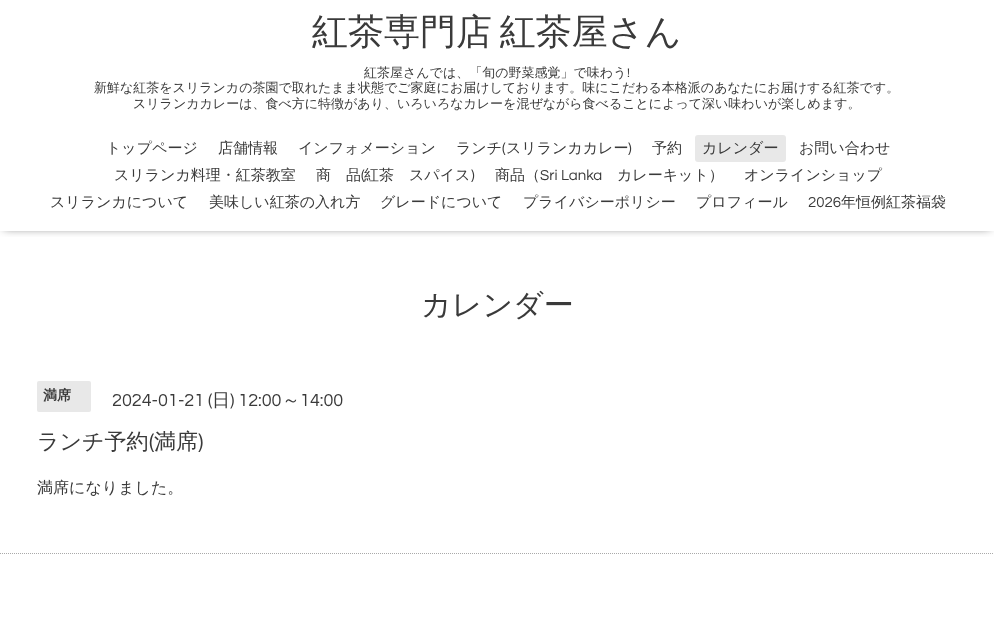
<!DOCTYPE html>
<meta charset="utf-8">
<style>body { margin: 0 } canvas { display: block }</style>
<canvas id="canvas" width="994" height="620"></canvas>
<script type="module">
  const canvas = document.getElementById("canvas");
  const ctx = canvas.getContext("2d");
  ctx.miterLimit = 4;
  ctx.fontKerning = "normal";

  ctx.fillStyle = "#ffffff";
  ctx.fillRect(0, 0, 994, 620);
  ctx.save();
  ctx.beginPath();
  ctx.rect(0, 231, 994, 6);
  ctx.clip();
  ctx.fillStyle = "rgba(0, 0, 0, 0.6)";
  ctx.filter = "blur(5px)";
  ctx.beginPath();
  ctx.rect(4, -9, 986, 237);
  ctx.fill();
  ctx.filter = "none";
  ctx.restore();
  ctx.wordSpacing = "-3px";
  ctx.font = "500 36px WenQuanYi Zen Hei";
  ctx.fillStyle = "#3a3a3a";
  ctx.fillText("紅茶専門店 紅茶屋さん", 312, 44);
  ctx.wordSpacing = "0px";
  ctx.font = "500 13px WenQuanYi Zen Hei";
  ctx.fillText("紅茶屋さんでは、「旬の野菜感覚」で味わう", 364, 77);
  ctx.font = "13px Questrial";
  ctx.fillText("!", 627, 77);
  ctx.font = "500 13px WenQuanYi Zen Hei";
  ctx.fillText("新鮮な紅茶をスリランカの茶園で取れたまま状態でご家庭にお届けしております。味にこだわる本格派のあなたにお届けする紅茶です。", 94, 92);
  ctx.fillText("スリランカカレーは、食べ方に特徴があり、いろいろなカレーを混ぜながら食べることによって深い味わいが楽しめます。", 133, 108);
  ctx.font = "500 15px WenQuanYi Zen Hei";
  ctx.fillText("トップページ", 106, 153);
  ctx.fillText("店舗情報", 218, 153);
  ctx.fillText("インフォメーション", 298, 153);
  ctx.fillText("ランチ", 456, 153);
  ctx.font = "15px Questrial";
  ctx.fillText("(", 502, 153);
  ctx.font = "500 15px WenQuanYi Zen Hei";
  ctx.fillText("スリランカカレー", 506, 153);
  ctx.font = "15px Questrial";
  ctx.fillText(")", 628, 153);
  ctx.font = "500 15px WenQuanYi Zen Hei";
  ctx.fillText("予約", 652, 153);
  ctx.fillStyle = "#e8e8e8";
  ctx.beginPath();
  ctx.roundRect(695, 135, 91, 27, 3);
  ctx.fill();
  ctx.fillStyle = "#3a3a3a";
  ctx.fillText("カレンダー", 702, 153);
  ctx.fillText("お問い合わせ", 799, 153);
  ctx.fillText("スリランカ料理・紅茶教室", 114, 180);
  ctx.fillText("商　品", 316, 180);
  ctx.font = "15px Questrial";
  ctx.fillText("(", 361, 180);
  ctx.font = "500 15px WenQuanYi Zen Hei";
  ctx.fillText("紅茶　スパイス", 364, 180);
  ctx.font = "15px Questrial";
  ctx.fillText(")", 471, 180);
  ctx.font = "500 15px WenQuanYi Zen Hei";
  ctx.fillText("商品（", 495, 180);
  ctx.font = "15px Questrial";
  ctx.fillText("Sri Lanka", 540, 180);
  ctx.font = "500 15px WenQuanYi Zen Hei";
  ctx.fillText("カレーキット）", 617, 180);
  ctx.fillText("オンラインショップ", 744, 180);
  ctx.fillText("スリランカについて", 50, 207);
  ctx.fillText("美味しい紅茶の入れ方", 209, 207);
  ctx.fillText("グレードについて", 380, 207);
  ctx.fillText("プライバシーポリシー", 523, 207);
  ctx.fillText("プロフィール", 696, 207);
  ctx.font = "15px Questrial";
  ctx.fillText("2026", 808, 207);
  ctx.font = "500 15px WenQuanYi Zen Hei";
  ctx.fillText("年恒例紅茶福袋", 841, 207);
  ctx.font = "500 30px WenQuanYi Zen Hei";
  ctx.fillText("カレンダー", 421, 315);
  ctx.fillStyle = "#e8e8e8";
  ctx.beginPath();
  ctx.roundRect(37, 381, 54, 31, 2);
  ctx.fill();
  ctx.font = "bold 14px WenQuanYi Zen Hei";
  ctx.fillStyle = "#3a3a3a";
  ctx.fillText("満席", 43, 400);
  ctx.font = "18px Questrial";
  ctx.fillText("2024-01-21 (", 112, 406);
  ctx.font = "500 18px WenQuanYi Zen Hei";
  ctx.fillText("日", 212, 406);
  ctx.font = "18px Questrial";
  ctx.fillText(") 12:00", 230, 406);
  ctx.font = "500 18px WenQuanYi Zen Hei";
  ctx.fillText("～", 282, 406);
  ctx.font = "18px Questrial";
  ctx.fillText("14:00", 300, 406);
  ctx.font = "500 22px WenQuanYi Zen Hei";
  ctx.fillText("ランチ予約", 37, 449);
  ctx.font = "22px Questrial";
  ctx.fillText("(", 149, 449);
  ctx.font = "500 22px WenQuanYi Zen Hei";
  ctx.fillText("満席", 154, 449);
  ctx.font = "22px Questrial";
  ctx.fillText(")", 198, 449);
  ctx.font = "500 16px WenQuanYi Zen Hei";
  ctx.fillText("満席になりました。", 37, 493);
  ctx.beginPath();
  ctx.moveTo(0, 553.5);
  ctx.lineTo(994, 553.5);
  ctx.strokeStyle = "#a9a9a9";
  ctx.setLineDash([1, 1]);
  ctx.stroke();
</script>
